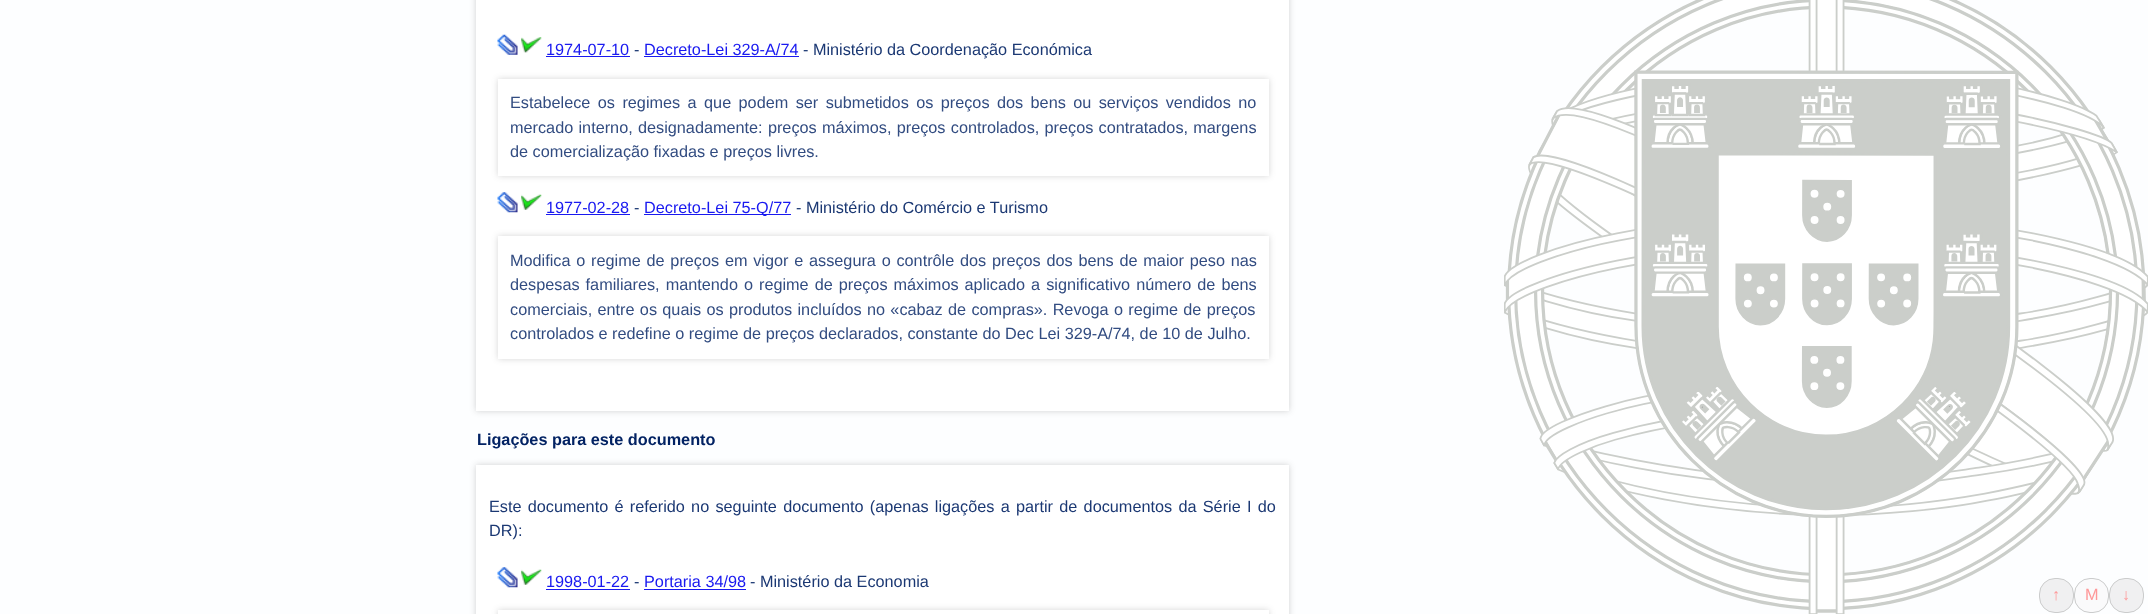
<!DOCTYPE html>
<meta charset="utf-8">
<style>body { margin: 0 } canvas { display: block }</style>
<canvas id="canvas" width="2148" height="614"></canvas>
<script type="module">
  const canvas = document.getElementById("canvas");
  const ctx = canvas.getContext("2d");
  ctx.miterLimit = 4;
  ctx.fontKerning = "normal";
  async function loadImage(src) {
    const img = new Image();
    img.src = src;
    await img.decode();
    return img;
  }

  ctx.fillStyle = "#fdfeff";
  ctx.fillRect(0, 0, 2148, 614);
  ctx.drawImage(await loadImage("img1.png"), 1504, 0, 644, 614);
  ctx.fillStyle = "rgba(25, 25, 26, 0.2)";
  ctx.filter = "blur(3px)";
  ctx.beginPath();
  ctx.rect(476, -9, 813, 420);
  ctx.fill();
  ctx.filter = "none";
  ctx.fillStyle = "#ffffff";
  ctx.fillRect(476, 0, 813, 411);
  ctx.drawImage(await loadImage("img2.png"), 497, 34, 21, 21);
  ctx.drawImage(await loadImage("img3.png"), 521, 37, 21, 16);
  ctx.font = "16.25px Liberation Sans";
  ctx.fillStyle = "#1919f0";
  ctx.fillText("1974-07-10", 546, 55);
  ctx.fillRect(546, 56, 84, 1);
  ctx.fillStyle = "#1b3873";
  ctx.fillText("-", 634, 55);
  ctx.fillStyle = "#1919f0";
  ctx.fillText("Decreto-Lei 329-A/74", 644, 55);
  ctx.fillRect(644, 56, 155, 1);
  ctx.fillStyle = "#1b3873";
  ctx.fillText("- Ministério da Coordenação Económica", 803, 55);
  ctx.fillStyle = "rgba(48, 48, 48, 0.2)";
  ctx.filter = "blur(3px)";
  ctx.beginPath();
  ctx.rect(498, 79, 771, 97);
  ctx.fill();
  ctx.filter = "none";
  ctx.fillStyle = "#ffffff";
  ctx.fillRect(498, 79, 771, 97);
  ctx.wordSpacing = "2.9px";
  ctx.fillStyle = "#324c81";
  ctx.fillText("Estabelece os regimes a que podem ser submetidos os preços dos bens ou serviços vendidos no", 510, 108);
  ctx.wordSpacing = "0.75px";
  ctx.fillText("mercado interno, designadamente: preços máximos, preços controlados, preços contratados, margens", 510, 133);
  ctx.wordSpacing = "0px";
  ctx.fillText("de comercialização fixadas e preços livres.", 510, 157);
  ctx.drawImage(await loadImage("img4.png"), 497, 192, 21, 21);
  ctx.drawImage(await loadImage("img5.png"), 521, 194, 21, 16);
  ctx.fillStyle = "#1919f0";
  ctx.fillText("1977-02-28", 546, 213);
  ctx.fillRect(546, 214, 84, 1);
  ctx.fillStyle = "#1b3873";
  ctx.fillText("-", 634, 213);
  ctx.fillStyle = "#1919f0";
  ctx.fillRect(644, 214, 147, 1);
  ctx.fillText("Decreto-Lei 75-Q/77", 644, 213);
  ctx.fillStyle = "#1b3873";
  ctx.fillText("- Ministério do Comércio e Turismo", 796, 213);
  ctx.fillStyle = "rgba(48, 48, 48, 0.2)";
  ctx.filter = "blur(3px)";
  ctx.beginPath();
  ctx.rect(498, 236, 771, 123);
  ctx.fill();
  ctx.filter = "none";
  ctx.fillStyle = "#ffffff";
  ctx.fillRect(498, 236, 771, 123);
  ctx.wordSpacing = "1.25px";
  ctx.fillStyle = "#324c81";
  ctx.fillText("Modifica o regime de preços em vigor e assegura o contrôle dos preços dos bens de maior peso nas", 510, 266);
  ctx.wordSpacing = "1.5px";
  ctx.fillText("despesas familiares, mantendo o regime de preços máximos aplicado a significativo número de bens", 510, 290);
  ctx.wordSpacing = "0.8px";
  ctx.fillText("comerciais, entre os quais os produtos incluídos no «cabaz de compras». Revoga o regime de preços", 510, 315);
  ctx.wordSpacing = "0px";
  ctx.fillText("controlados e redefine o regime de preços declarados, constante do Dec Lei 329-A/74, de 10 de Julho.", 510, 339);
  ctx.font = "bold 16.25px Liberation Sans";
  ctx.fillStyle = "#022263";
  ctx.fillText("Ligações para este documento", 477, 445);
  ctx.fillStyle = "rgba(25, 25, 26, 0.2)";
  ctx.filter = "blur(3px)";
  ctx.beginPath();
  ctx.rect(476, 465, 813, 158);
  ctx.fill();
  ctx.filter = "none";
  ctx.fillStyle = "#ffffff";
  ctx.fillRect(476, 465, 813, 149);
  ctx.wordSpacing = "1.75px";
  ctx.font = "16.25px Liberation Sans";
  ctx.fillStyle = "#1b3873";
  ctx.fillText("Este documento é referido no seguinte documento (apenas ligações a partir de documentos da Série I do", 489, 512);
  ctx.wordSpacing = "0px";
  ctx.fillText("DR):", 489, 536);
  ctx.drawImage(await loadImage("img6.png"), 497, 567, 21, 21);
  ctx.drawImage(await loadImage("img5.png"), 521, 569, 21, 16);
  ctx.fillStyle = "#1919f0";
  ctx.fillText("1998-01-22", 546, 587);
  ctx.fillRect(546, 589, 84, 1);
  ctx.fillStyle = "#1b3873";
  ctx.fillText("-", 634, 587);
  ctx.fillStyle = "#1919f0";
  ctx.fillText("Portaria 34/98", 644, 587);
  ctx.fillRect(644, 589, 102, 1);
  ctx.fillStyle = "#1b3873";
  ctx.fillText("- Ministério da Economia", 750, 587);
  ctx.fillStyle = "rgba(48, 48, 48, 0.2)";
  ctx.filter = "blur(3px)";
  ctx.beginPath();
  ctx.rect(498, 610, 771, 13);
  ctx.fill();
  ctx.filter = "none";
  ctx.fillStyle = "#ffffff";
  ctx.fillRect(498, 610, 771, 4);
  ctx.fillStyle = "#f0f0f1";
  ctx.beginPath();
  ctx.roundRect(2039.5, 578.5, 34, 34, 15.5);
  ctx.fill();
  ctx.strokeStyle = "#cbcccc";
  ctx.stroke();
  ctx.fillStyle = "#fe9899";
  ctx.fillText("↑", 2052, 600);
  ctx.fillStyle = "#fafafb";
  ctx.beginPath();
  ctx.roundRect(2074.5, 578.5, 34, 34, 15.5);
  ctx.fill();
  ctx.stroke();
  ctx.fillStyle = "#fe9899";
  ctx.fillText("M", 2085, 600);
  ctx.fillStyle = "#f0f0f1";
  ctx.beginPath();
  ctx.roundRect(2109.5, 578.5, 34, 34, 15.5);
  ctx.fill();
  ctx.stroke();
  ctx.fillStyle = "#fe9899";
  ctx.fillText("↓", 2122, 600);
</script>
